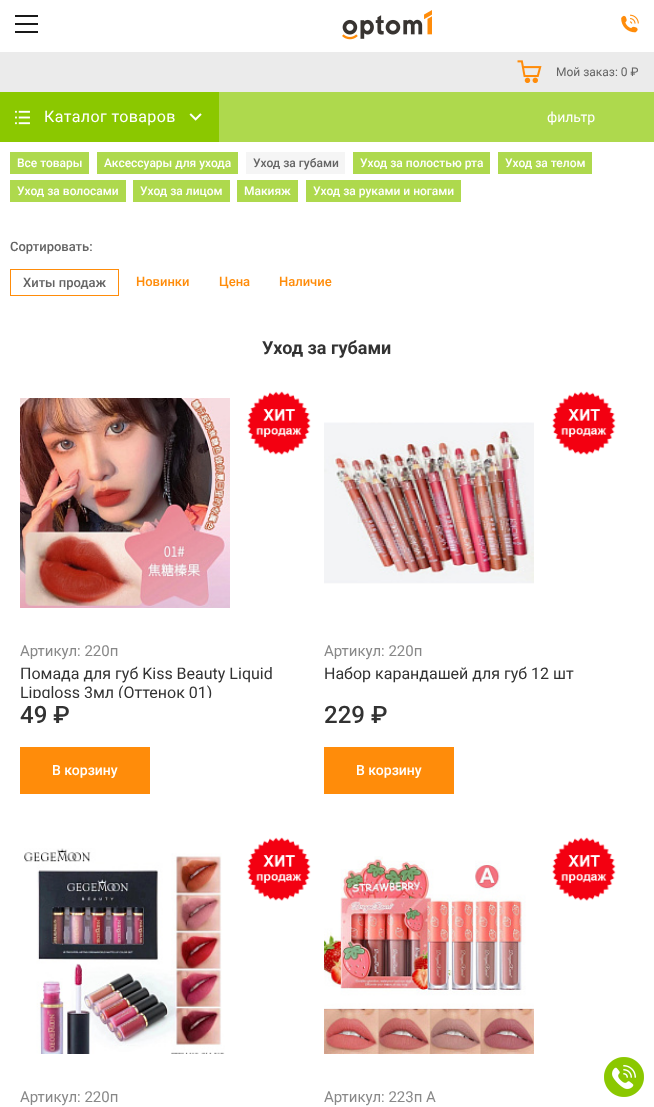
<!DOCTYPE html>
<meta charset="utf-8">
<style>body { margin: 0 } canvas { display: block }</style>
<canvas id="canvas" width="654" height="1107"></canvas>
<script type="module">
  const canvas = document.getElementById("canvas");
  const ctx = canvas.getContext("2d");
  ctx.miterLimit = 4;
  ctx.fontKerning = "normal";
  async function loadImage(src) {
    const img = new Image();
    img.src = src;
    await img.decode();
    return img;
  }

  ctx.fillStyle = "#ffffff";
  ctx.fillRect(0, 0, 654, 1107);
  ctx.fillStyle = "#191919";
  ctx.fillRect(15, 15, 23, 2);
  ctx.fillRect(15, 23, 23, 2);
  ctx.fillRect(15, 31, 23, 2);
  ctx.drawImage(await loadImage("img1.png"), 342, 10, 90, 30);
  ctx.drawImage(await loadImage("img2.png"), 621, 14, 18, 19);
  ctx.fillStyle = "#ebebeb";
  ctx.fillRect(0, 52, 654, 40);
  ctx.drawImage(await loadImage("img3.png"), 517, 60, 25, 23);
  ctx.font = "12px Roboto";
  ctx.fillStyle = "#646464";
  ctx.fillText("Мой заказ: 0 ₽", 556, 76);
  ctx.fillStyle = "#8bc800";
  ctx.fillRect(0, 92, 219, 50);
  ctx.drawImage(await loadImage("img4.png"), 15, 110, 15, 15);
  ctx.letterSpacing = "0.4px";
  ctx.font = "16px Roboto";
  ctx.fillStyle = "#ffffff";
  ctx.fillText("Каталог товаров", 44, 122);
  ctx.drawImage(await loadImage("img5.png"), 189, 113, 13, 8);
  ctx.fillStyle = "#aed94d";
  ctx.fillRect(219, 92, 435, 50);
  ctx.letterSpacing = "0px";
  ctx.font = "14px Roboto";
  ctx.fillStyle = "#ffffff";
  ctx.fillText("фильтр", 547, 122);
  ctx.fillStyle = "#aed94d";
  ctx.fillRect(10, 152, 79, 22);
  ctx.font = "500 12px Roboto";
  ctx.fillStyle = "#ffffff";
  ctx.fillText("Все товары", 17, 167);
  ctx.fillStyle = "#aed94d";
  ctx.fillRect(97, 152, 141, 22);
  ctx.fillStyle = "#ffffff";
  ctx.fillText("Аксессуары для ухода", 104, 167);
  ctx.fillStyle = "#f5f5f5";
  ctx.fillRect(246, 152, 99, 22);
  ctx.fillStyle = "#646464";
  ctx.fillText("Уход за губами", 253, 167);
  ctx.fillStyle = "#aed94d";
  ctx.fillRect(353, 152, 137, 22);
  ctx.fillStyle = "#ffffff";
  ctx.fillText("Уход за полостью рта", 360, 167);
  ctx.fillStyle = "#aed94d";
  ctx.fillRect(498, 152, 94, 22);
  ctx.fillStyle = "#ffffff";
  ctx.fillText("Уход за телом", 505, 167);
  ctx.fillStyle = "#aed94d";
  ctx.fillRect(10, 180, 116, 22);
  ctx.fillStyle = "#ffffff";
  ctx.fillText("Уход за волосами", 17, 195);
  ctx.fillStyle = "#aed94d";
  ctx.fillRect(133, 180, 97, 22);
  ctx.fillStyle = "#ffffff";
  ctx.fillText("Уход за лицом", 140, 195);
  ctx.fillStyle = "#aed94d";
  ctx.fillRect(237, 180, 61, 22);
  ctx.fillStyle = "#ffffff";
  ctx.fillText("Макияж", 244, 195);
  ctx.fillStyle = "#aed94d";
  ctx.fillRect(306, 180, 155, 22);
  ctx.fillStyle = "#ffffff";
  ctx.fillText("Уход за руками и ногами", 313, 195);
  ctx.font = "500 13px Roboto";
  ctx.fillStyle = "#646464";
  ctx.fillText("Сортировать:", 10, 251);
  ctx.strokeStyle = "#ff8c0a";
  ctx.strokeRect(10.5, 269.5, 108, 26);
  ctx.fillText("Хиты продаж", 23, 287);
  ctx.fillStyle = "#ff8c0a";
  ctx.fillText("Новинки", 136, 286);
  ctx.fillText("Цена", 219, 286);
  ctx.fillText("Наличие", 279, 286);
  ctx.font = "bold 18px Roboto";
  ctx.fillStyle = "#323232";
  ctx.fillText("Уход за губами", 262, 354);
  ctx.drawImage(await loadImage("img6.png"), 247, 391, 64, 64);
  ctx.drawImage(await loadImage("img7.png"), 20, 398, 210, 210);
  ctx.font = "15px Roboto";
  ctx.fillStyle = "#888888";
  ctx.fillText("Артикул: 220п", 20, 656);
  ctx.font = "16px Roboto";
  ctx.fillStyle = "#323232";
  ctx.fillText("Помада для губ Kiss Beauty Liquid", 20, 679);
  ctx.save();
  ctx.beginPath();
  ctx.rect(10, 623, 304, 75);
  ctx.clip();
  ctx.fillText("Lipgloss 3мл (Оттенок 01)", 20, 698);
  ctx.restore();
  ctx.font = "500 24px Roboto";
  ctx.fillText("49 ₽", 20, 723);
  ctx.fillStyle = "#ff8c0a";
  ctx.fillRect(20, 747, 130, 47);
  ctx.font = "500 14px Roboto";
  ctx.fillStyle = "#ffffff";
  ctx.fillText("В корзину", 52, 775);
  ctx.drawImage(await loadImage("img8.png"), 552, 391, 64, 64);
  ctx.drawImage(await loadImage("img9.png"), 324, 422, 210, 162);
  ctx.font = "15px Roboto";
  ctx.fillStyle = "#888888";
  ctx.fillText("Артикул: 220п", 324, 656);
  ctx.font = "16px Roboto";
  ctx.fillStyle = "#323232";
  ctx.fillText("Набор карандашей для губ 12 шт", 324, 679);
  ctx.font = "500 24px Roboto";
  ctx.fillText("229 ₽", 324, 723);
  ctx.fillStyle = "#ff8c0a";
  ctx.fillRect(324, 747, 130, 47);
  ctx.font = "500 14px Roboto";
  ctx.fillStyle = "#ffffff";
  ctx.fillText("В корзину", 356, 775);
  ctx.drawImage(await loadImage("img6.png"), 247, 837, 64, 64);
  ctx.drawImage(await loadImage("img10.png"), 24, 848, 201, 206);
  ctx.font = "15px Roboto";
  ctx.fillStyle = "#888888";
  ctx.fillText("Артикул: 220п", 20, 1102);
  ctx.drawImage(await loadImage("img8.png"), 552, 837, 64, 64);
  ctx.drawImage(await loadImage("img11.png"), 324, 856, 210, 198);
  ctx.fillText("Артикул: 223п A", 324, 1102);
  ctx.drawImage(await loadImage("img12.png"), 604, 1057, 40, 40);
</script>
